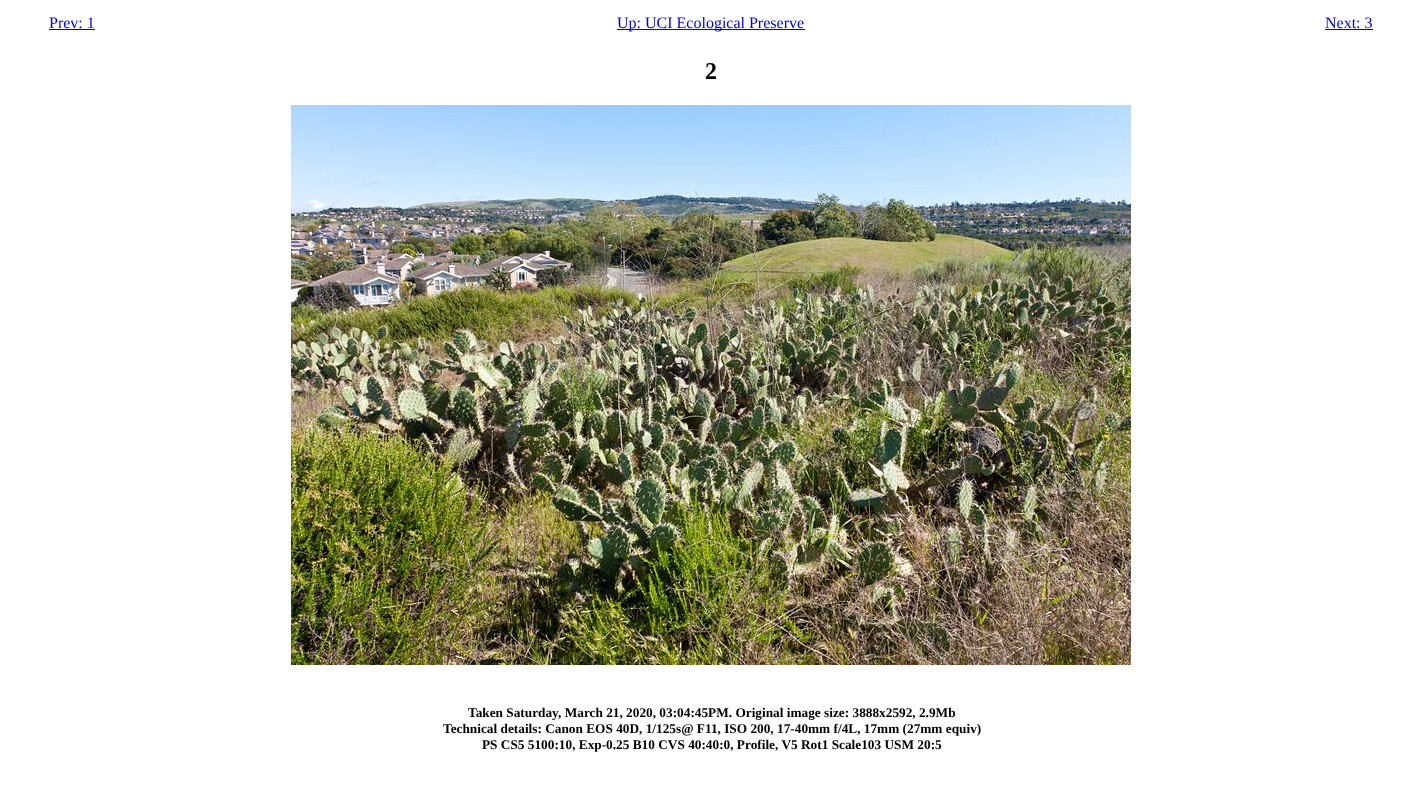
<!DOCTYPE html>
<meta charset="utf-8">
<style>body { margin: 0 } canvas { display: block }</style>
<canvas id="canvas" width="1422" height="794"></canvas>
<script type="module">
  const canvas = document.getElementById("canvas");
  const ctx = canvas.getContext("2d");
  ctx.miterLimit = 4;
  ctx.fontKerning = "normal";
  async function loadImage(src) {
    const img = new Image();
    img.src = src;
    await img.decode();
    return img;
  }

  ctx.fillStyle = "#ffffff";
  ctx.fillRect(0, 0, 1422, 794);
  ctx.font = "16px Liberation Serif";
  ctx.fillStyle = "#0000ee";
  ctx.fillText("Prev: 1", 49, 28);
  ctx.fillRect(49, 29, 46, 1);
  ctx.fillRect(617, 29, 188, 1);
  ctx.fillText("Up: UCI Ecological Preserve", 617, 28);
  ctx.fillText("Next: 3", 1325, 28);
  ctx.fillRect(1325, 29, 48, 1);
  ctx.font = "bold 24px Liberation Serif";
  ctx.fillStyle = "#000000";
  ctx.fillText("2", 705, 79);
  ctx.drawImage(await loadImage("img1.png"), 291, 105, 840, 560);
  ctx.font = "bold 13.3px Liberation Serif";
  ctx.fillText("Taken Saturday, March 21, 2020, 03:04:45PM. Original image size: 3888x2592, 2.9Mb", 468, 717);
  ctx.fillText("Technical details: Canon EOS 40D, 1/125s@ F11, ISO 200, 17-40mm f/4L, 17mm (27mm equiv)", 443, 733);
  ctx.fillText("PS CS5 5100:10, Exp-0.25 B10 CVS 40:40:0, Profile, V5 Rot1 Scale103 USM 20:5", 482, 749);
</script>
